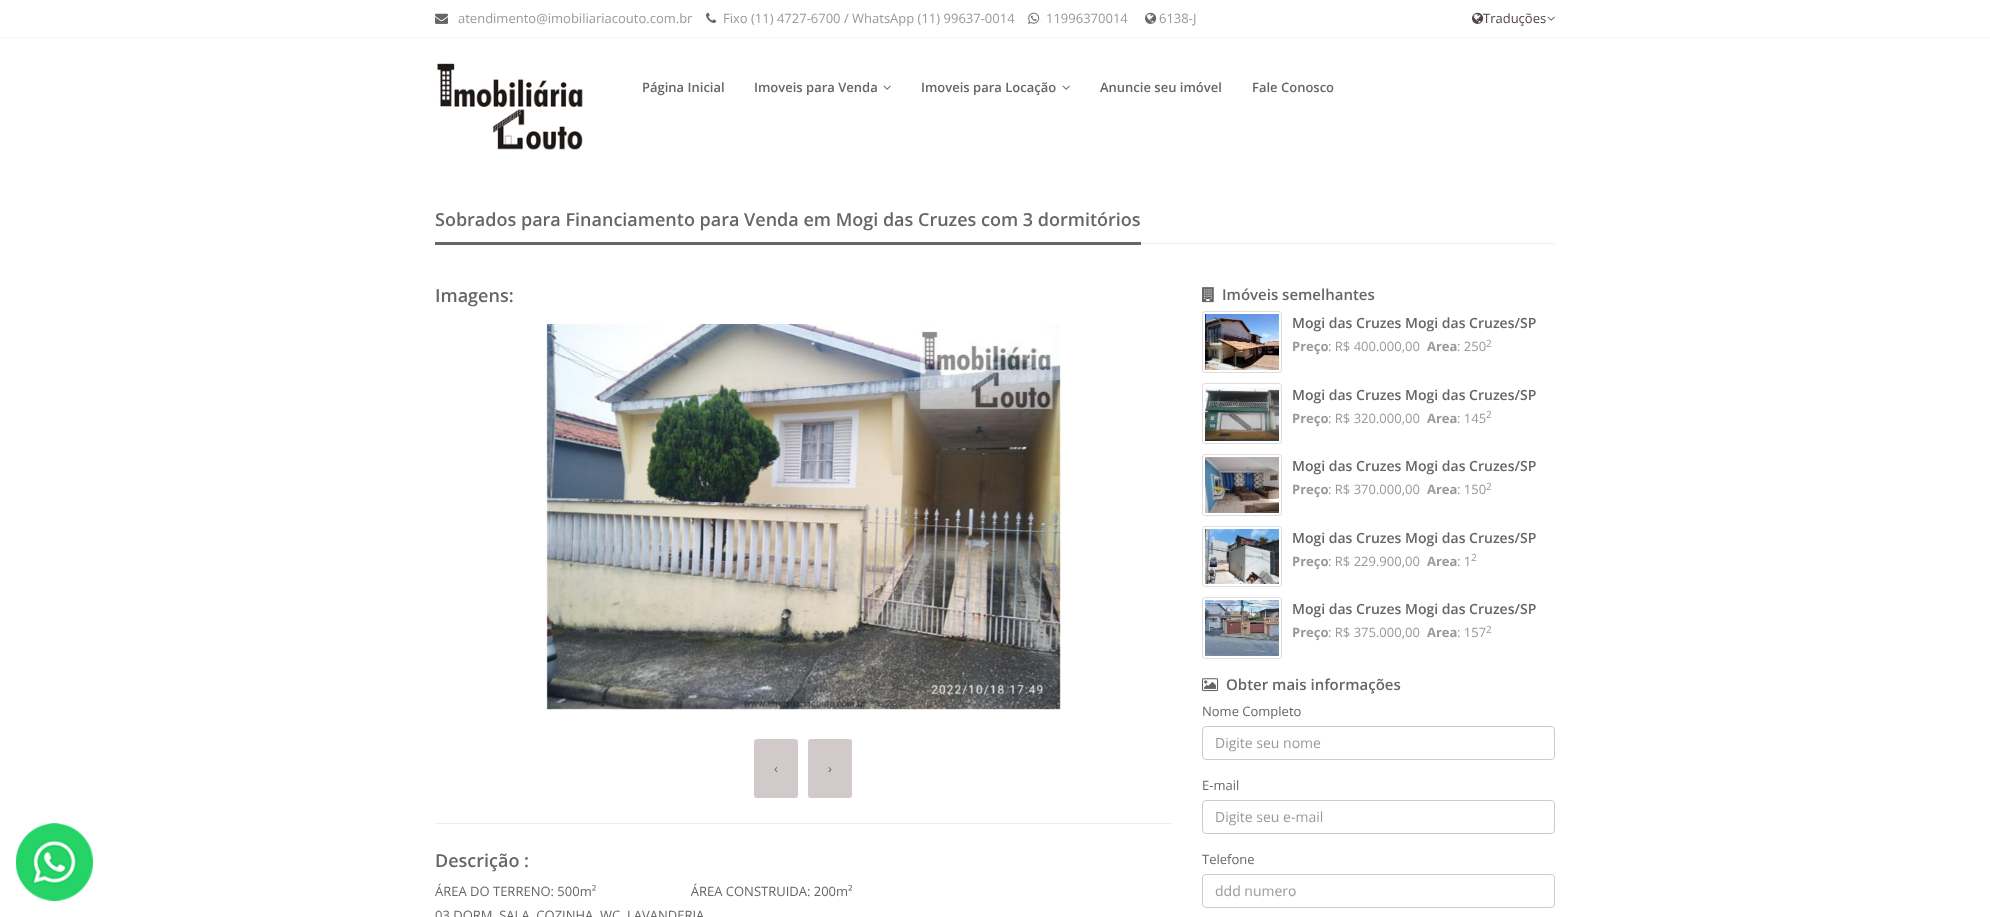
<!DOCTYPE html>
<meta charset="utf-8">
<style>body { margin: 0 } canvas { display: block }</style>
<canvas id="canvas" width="1990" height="917"></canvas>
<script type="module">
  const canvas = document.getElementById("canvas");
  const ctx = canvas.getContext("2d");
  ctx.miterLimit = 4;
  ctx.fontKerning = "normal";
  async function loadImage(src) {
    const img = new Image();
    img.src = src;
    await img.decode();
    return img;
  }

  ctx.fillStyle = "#ffffff";
  ctx.fillRect(0, 0, 1990, 917);
  ctx.fillStyle = "#f5f5f5";
  ctx.fillRect(0, 37, 1990, 1);
  ctx.drawImage(await loadImage("img1.png"), 435, 13, 13, 11);
  ctx.font = "13px Open Sans";
  ctx.fillStyle = "#999999";
  ctx.fillText("atendimento@imobiliariacouto.com.br", 458, 23);
  ctx.drawImage(await loadImage("img2.png"), 706, 12, 11, 11);
  ctx.fillText("Fixo (11) 4727-6700 / WhatsApp (11) 99637-0014", 723, 23);
  ctx.drawImage(await loadImage("img3.png"), 1028, 12, 12, 12);
  ctx.fillText("11996370014", 1046, 23);
  ctx.drawImage(await loadImage("img4.png"), 1145, 12, 12, 12);
  ctx.fillText("6138-J", 1159, 23);
  ctx.drawImage(await loadImage("img5.png"), 1472, 12, 12, 12);
  ctx.fillStyle = "#524444";
  ctx.fillText("Traduções", 1483, 23);
  ctx.drawImage(await loadImage("img6.png"), 1547, 16, 8, 5);
  ctx.drawImage(await loadImage("img7.png"), 437, 63, 146, 87);
  ctx.font = "600 13px Open Sans";
  ctx.fillStyle = "#666666";
  ctx.fillText("Página Inicial", 642, 92);
  ctx.fillText("Imoveis para Venda", 754, 92);
  ctx.drawImage(await loadImage("img8.png"), 883, 85, 8, 5);
  ctx.fillText("Imoveis para Locação", 921, 92);
  ctx.drawImage(await loadImage("img8.png"), 1062, 85, 8, 5);
  ctx.fillText("Anuncie seu imóvel", 1100, 92);
  ctx.fillText("Fale Conosco", 1252, 92);
  ctx.drawImage(await loadImage("img9.png"), 16, 823, 77, 78);
  ctx.fillStyle = "#eeeeee";
  ctx.fillRect(1141, 243, 414, 1);
  ctx.font = "600 18px Open Sans";
  ctx.fillStyle = "#666666";
  ctx.fillText("Sobrados para Financiamento para Venda em Mogi das Cruzes com 3 dormitórios", 435, 226);
  ctx.fillRect(435, 242, 706, 3);
  ctx.fillText("Imagens:", 435, 302);
  ctx.drawImage(await loadImage("img10.png"), 546, 324, 515, 386);
  ctx.fillStyle = "#d2caca";
  ctx.beginPath();
  ctx.roundRect(754, 739, 44, 59, 3);
  ctx.fill();
  ctx.font = "13px Open Sans";
  ctx.fillStyle = "#666666";
  ctx.fillText("‹", 774, 773);
  ctx.fillStyle = "#d2caca";
  ctx.beginPath();
  ctx.roundRect(808, 739, 44, 59, 3);
  ctx.fill();
  ctx.fillStyle = "#666666";
  ctx.fillText("›", 828, 773);
  ctx.fillStyle = "#eeeeee";
  ctx.fillRect(435, 823, 737, 1);
  ctx.font = "600 18px Open Sans";
  ctx.fillStyle = "#666666";
  ctx.fillText("Descrição :", 435, 867);
  ctx.font = "13px Open Sans";
  ctx.fillText("ÁREA DO TERRENO: 500m²                            ÁREA CONSTRUIDA: 200m²", 435, 896);
  ctx.fillText("03 DORM, SALA, COZINHA, WC, LAVANDERIA", 435, 920);
  ctx.drawImage(await loadImage("img11.png"), 1202, 287, 12, 16);
  ctx.font = "600 15px Open Sans";
  ctx.fillText("Imóveis semelhantes", 1222, 300);
  ctx.beginPath();
  ctx.roundRect(1202.5, 311.5, 79, 61, 2.5);
  ctx.strokeStyle = "#dddddd";
  ctx.stroke();
  ctx.drawImage(await loadImage("img12.png"), 1205, 314, 74, 56);
  ctx.font = "600 14px Open Sans";
  ctx.fillText("Mogi das Cruzes Mogi das Cruzes/SP", 1292, 328);
  ctx.font = "bold 13px Open Sans";
  ctx.fillStyle = "#999999";
  ctx.fillText("Preço", 1292, 351);
  ctx.font = "13px Open Sans";
  ctx.fillText(": R$ 400.000,00", 1328, 351);
  ctx.font = "bold 13px Open Sans";
  ctx.fillText("Area", 1427, 351);
  ctx.font = "13px Open Sans";
  ctx.fillText(": 250", 1457, 351);
  ctx.font = "10px Open Sans";
  ctx.fillText("2", 1486, 347);
  ctx.beginPath();
  ctx.roundRect(1202.5, 383.5, 79, 60, 2.5);
  ctx.stroke();
  ctx.drawImage(await loadImage("img13.png"), 1205, 387, 74, 54);
  ctx.font = "600 14px Open Sans";
  ctx.fillStyle = "#666666";
  ctx.fillText("Mogi das Cruzes Mogi das Cruzes/SP", 1292, 400);
  ctx.font = "bold 13px Open Sans";
  ctx.fillStyle = "#999999";
  ctx.fillText("Preço", 1292, 423);
  ctx.font = "13px Open Sans";
  ctx.fillText(": R$ 320.000,00", 1328, 423);
  ctx.font = "bold 13px Open Sans";
  ctx.fillText("Area", 1427, 423);
  ctx.font = "13px Open Sans";
  ctx.fillText(": 145", 1457, 423);
  ctx.font = "10px Open Sans";
  ctx.fillText("2", 1486, 418);
  ctx.beginPath();
  ctx.roundRect(1202.5, 454.5, 79, 61, 2.5);
  ctx.stroke();
  ctx.drawImage(await loadImage("img14.png"), 1205, 457, 74, 56);
  ctx.font = "600 14px Open Sans";
  ctx.fillStyle = "#666666";
  ctx.fillText("Mogi das Cruzes Mogi das Cruzes/SP", 1292, 471);
  ctx.font = "bold 13px Open Sans";
  ctx.fillStyle = "#999999";
  ctx.fillText("Preço", 1292, 494);
  ctx.font = "13px Open Sans";
  ctx.fillText(": R$ 370.000,00", 1328, 494);
  ctx.font = "bold 13px Open Sans";
  ctx.fillText("Area", 1427, 494);
  ctx.font = "13px Open Sans";
  ctx.fillText(": 150", 1457, 494);
  ctx.font = "10px Open Sans";
  ctx.fillText("2", 1486, 490);
  ctx.beginPath();
  ctx.roundRect(1202.5, 526.5, 79, 60, 2.5);
  ctx.stroke();
  ctx.drawImage(await loadImage("img15.png"), 1205, 529, 74, 55);
  ctx.font = "600 14px Open Sans";
  ctx.fillStyle = "#666666";
  ctx.fillText("Mogi das Cruzes Mogi das Cruzes/SP", 1292, 543);
  ctx.font = "bold 13px Open Sans";
  ctx.fillStyle = "#999999";
  ctx.fillText("Preço", 1292, 566);
  ctx.font = "13px Open Sans";
  ctx.fillText(": R$ 229.900,00", 1328, 566);
  ctx.font = "bold 13px Open Sans";
  ctx.fillText("Area", 1427, 566);
  ctx.font = "13px Open Sans";
  ctx.fillText(": 1", 1457, 566);
  ctx.font = "10px Open Sans";
  ctx.fillText("2", 1471, 561);
  ctx.beginPath();
  ctx.roundRect(1202.5, 597.5, 79, 61, 2.5);
  ctx.stroke();
  ctx.drawImage(await loadImage("img16.png"), 1205, 600, 74, 56);
  ctx.font = "600 14px Open Sans";
  ctx.fillStyle = "#666666";
  ctx.fillText("Mogi das Cruzes Mogi das Cruzes/SP", 1292, 614);
  ctx.font = "bold 13px Open Sans";
  ctx.fillStyle = "#999999";
  ctx.fillText("Preço", 1292, 637);
  ctx.font = "13px Open Sans";
  ctx.fillText(": R$ 375.000,00", 1328, 637);
  ctx.font = "bold 13px Open Sans";
  ctx.fillText("Area", 1427, 637);
  ctx.font = "13px Open Sans";
  ctx.fillText(": 157", 1457, 637);
  ctx.font = "10px Open Sans";
  ctx.fillText("2", 1486, 633);
  ctx.drawImage(await loadImage("img17.png"), 1202, 678, 17, 14);
  ctx.font = "600 15px Open Sans";
  ctx.fillStyle = "#666666";
  ctx.fillText("Obter mais informações", 1226, 690);
  ctx.font = "13px Open Sans";
  ctx.fillText("Nome Completo", 1202, 716);
  ctx.beginPath();
  ctx.roundRect(1202.5, 726.5, 352, 33, 3.5);
  ctx.strokeStyle = "#cccccc";
  ctx.stroke();
  ctx.font = "14px Open Sans";
  ctx.fillStyle = "#999999";
  ctx.fillText("Digite seu nome", 1215, 748);
  ctx.font = "13px Open Sans";
  ctx.fillStyle = "#666666";
  ctx.fillText("E-mail", 1202, 790);
  ctx.beginPath();
  ctx.roundRect(1202.5, 800.5, 352, 33, 3.5);
  ctx.stroke();
  ctx.font = "14px Open Sans";
  ctx.fillStyle = "#999999";
  ctx.fillText("Digite seu e-mail", 1215, 822);
  ctx.font = "13px Open Sans";
  ctx.fillStyle = "#666666";
  ctx.fillText("Telefone", 1202, 864);
  ctx.beginPath();
  ctx.roundRect(1202.5, 874.5, 352, 33, 3.5);
  ctx.stroke();
  ctx.font = "14px Open Sans";
  ctx.fillStyle = "#999999";
  ctx.fillText("ddd numero", 1215, 896);
</script>
